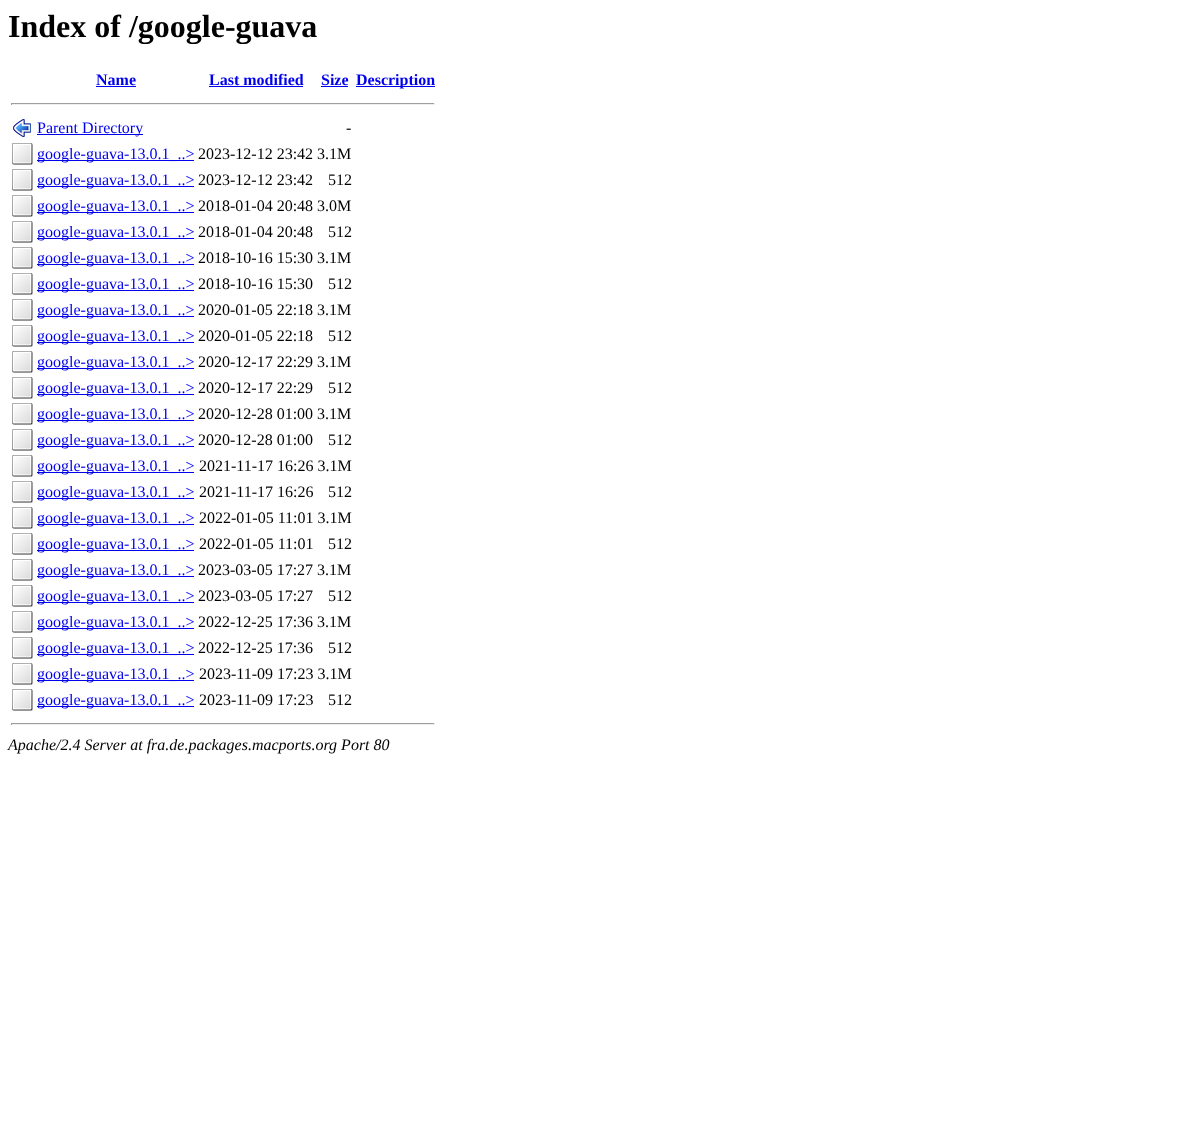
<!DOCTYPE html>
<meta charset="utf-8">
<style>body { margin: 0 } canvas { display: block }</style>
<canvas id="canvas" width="1184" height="1142"></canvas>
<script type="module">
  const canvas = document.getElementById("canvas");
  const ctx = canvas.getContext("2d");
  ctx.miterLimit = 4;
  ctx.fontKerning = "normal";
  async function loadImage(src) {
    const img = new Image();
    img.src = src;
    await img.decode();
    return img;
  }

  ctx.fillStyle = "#ffffff";
  ctx.fillRect(0, 0, 1184, 1142);
  ctx.font = "bold 32px Liberation Serif";
  ctx.fillStyle = "#000000";
  ctx.fillText("Index of /google-guava", 8, 37);
  ctx.font = "bold 16px Liberation Serif";
  ctx.fillStyle = "#0000ee";
  ctx.fillText("Name", 96, 85);
  ctx.fillRect(96, 86, 40, 1);
  ctx.fillText("Last modified", 209, 85);
  ctx.fillRect(209, 86, 94, 1);
  ctx.fillText("Size", 321, 85);
  ctx.fillRect(321, 86, 27, 1);
  ctx.fillRect(356, 86, 79, 1);
  ctx.fillText("Description", 356, 85);
  ctx.fillStyle = "#9f9f9f";
  ctx.fillRect(11, 103, 424, 1);
  ctx.fillStyle = "#eeeeee";
  ctx.fillRect(434, 103, 1, 2);
  ctx.fillRect(11, 104, 424, 1);
  ctx.fillStyle = "#9f9f9f";
  ctx.fillRect(11, 103, 1, 2);
  ctx.drawImage(await loadImage("img1.png"), 13, 119, 18, 18);
  ctx.fillStyle = "#0000ee";
  ctx.fillRect(37, 134, 106, 1);
  ctx.font = "16px Liberation Serif";
  ctx.fillText("Parent Directory", 37, 133);
  ctx.fillStyle = "#000000";
  ctx.fillText("-", 346, 133);
  ctx.drawImage(await loadImage("img2.png"), 12, 143, 21, 22);
  ctx.fillStyle = "#0000ee";
  ctx.fillRect(37, 160, 157, 1);
  ctx.fillText("google-guava-13.0.1_..>", 37, 159);
  ctx.fillStyle = "#000000";
  ctx.fillText("2023-12-12 23:42 3.1M", 198, 159);
  ctx.drawImage(await loadImage("img2.png"), 12, 169, 21, 22);
  ctx.fillStyle = "#0000ee";
  ctx.fillRect(37, 186, 157, 1);
  ctx.fillText("google-guava-13.0.1_..>", 37, 185);
  ctx.fillStyle = "#000000";
  ctx.fillText("2023-12-12 23:42", 198, 185);
  ctx.fillText("512", 328, 185);
  ctx.drawImage(await loadImage("img2.png"), 12, 195, 21, 22);
  ctx.fillStyle = "#0000ee";
  ctx.fillRect(37, 212, 157, 1);
  ctx.fillText("google-guava-13.0.1_..>", 37, 211);
  ctx.fillStyle = "#000000";
  ctx.fillText("2018-01-04 20:48 3.0M", 198, 211);
  ctx.drawImage(await loadImage("img2.png"), 12, 221, 21, 22);
  ctx.fillStyle = "#0000ee";
  ctx.fillRect(37, 238, 157, 1);
  ctx.fillText("google-guava-13.0.1_..>", 37, 237);
  ctx.fillStyle = "#000000";
  ctx.fillText("2018-01-04 20:48", 198, 237);
  ctx.fillText("512", 328, 237);
  ctx.drawImage(await loadImage("img2.png"), 12, 247, 21, 22);
  ctx.fillStyle = "#0000ee";
  ctx.fillRect(37, 264, 157, 1);
  ctx.fillText("google-guava-13.0.1_..>", 37, 263);
  ctx.fillStyle = "#000000";
  ctx.fillText("2018-10-16 15:30 3.1M", 198, 263);
  ctx.drawImage(await loadImage("img2.png"), 12, 273, 21, 22);
  ctx.fillStyle = "#0000ee";
  ctx.fillRect(37, 290, 157, 1);
  ctx.fillText("google-guava-13.0.1_..>", 37, 289);
  ctx.fillStyle = "#000000";
  ctx.fillText("2018-10-16 15:30", 198, 289);
  ctx.fillText("512", 328, 289);
  ctx.drawImage(await loadImage("img2.png"), 12, 299, 21, 22);
  ctx.fillStyle = "#0000ee";
  ctx.fillRect(37, 316, 157, 1);
  ctx.fillText("google-guava-13.0.1_..>", 37, 315);
  ctx.fillStyle = "#000000";
  ctx.fillText("2020-01-05 22:18 3.1M", 198, 315);
  ctx.drawImage(await loadImage("img2.png"), 12, 325, 21, 22);
  ctx.fillStyle = "#0000ee";
  ctx.fillRect(37, 342, 157, 1);
  ctx.fillText("google-guava-13.0.1_..>", 37, 341);
  ctx.fillStyle = "#000000";
  ctx.fillText("2020-01-05 22:18", 198, 341);
  ctx.fillText("512", 328, 341);
  ctx.drawImage(await loadImage("img2.png"), 12, 351, 21, 22);
  ctx.fillStyle = "#0000ee";
  ctx.fillRect(37, 368, 157, 1);
  ctx.fillText("google-guava-13.0.1_..>", 37, 367);
  ctx.fillStyle = "#000000";
  ctx.fillText("2020-12-17 22:29 3.1M", 198, 367);
  ctx.drawImage(await loadImage("img2.png"), 12, 377, 21, 22);
  ctx.fillStyle = "#0000ee";
  ctx.fillRect(37, 394, 157, 1);
  ctx.fillText("google-guava-13.0.1_..>", 37, 393);
  ctx.fillStyle = "#000000";
  ctx.fillText("2020-12-17 22:29", 198, 393);
  ctx.fillText("512", 328, 393);
  ctx.drawImage(await loadImage("img2.png"), 12, 403, 21, 22);
  ctx.fillStyle = "#0000ee";
  ctx.fillRect(37, 420, 157, 1);
  ctx.fillText("google-guava-13.0.1_..>", 37, 419);
  ctx.fillStyle = "#000000";
  ctx.fillText("2020-12-28 01:00 3.1M", 198, 419);
  ctx.drawImage(await loadImage("img2.png"), 12, 429, 21, 22);
  ctx.fillStyle = "#0000ee";
  ctx.fillRect(37, 446, 157, 1);
  ctx.fillText("google-guava-13.0.1_..>", 37, 445);
  ctx.fillStyle = "#000000";
  ctx.fillText("2020-12-28 01:00", 198, 445);
  ctx.fillText("512", 328, 445);
  ctx.drawImage(await loadImage("img2.png"), 12, 455, 21, 22);
  ctx.fillStyle = "#0000ee";
  ctx.fillRect(37, 472, 157, 1);
  ctx.fillText("google-guava-13.0.1_..>", 37, 471);
  ctx.fillStyle = "#000000";
  ctx.fillText("2021-11-17 16:26 3.1M", 199, 471);
  ctx.drawImage(await loadImage("img2.png"), 12, 481, 21, 22);
  ctx.fillStyle = "#0000ee";
  ctx.fillRect(37, 498, 157, 1);
  ctx.fillText("google-guava-13.0.1_..>", 37, 497);
  ctx.fillStyle = "#000000";
  ctx.fillText("2021-11-17 16:26", 199, 497);
  ctx.fillText("512", 328, 497);
  ctx.drawImage(await loadImage("img2.png"), 12, 507, 21, 22);
  ctx.fillStyle = "#0000ee";
  ctx.fillRect(37, 524, 157, 1);
  ctx.fillText("google-guava-13.0.1_..>", 37, 523);
  ctx.fillStyle = "#000000";
  ctx.fillText("2022-01-05 11:01 3.1M", 199, 523);
  ctx.drawImage(await loadImage("img2.png"), 12, 533, 21, 22);
  ctx.fillStyle = "#0000ee";
  ctx.fillRect(37, 550, 157, 1);
  ctx.fillText("google-guava-13.0.1_..>", 37, 549);
  ctx.fillStyle = "#000000";
  ctx.fillText("2022-01-05 11:01", 199, 549);
  ctx.fillText("512", 328, 549);
  ctx.drawImage(await loadImage("img2.png"), 12, 559, 21, 22);
  ctx.fillStyle = "#0000ee";
  ctx.fillRect(37, 576, 157, 1);
  ctx.fillText("google-guava-13.0.1_..>", 37, 575);
  ctx.fillStyle = "#000000";
  ctx.fillText("2023-03-05 17:27 3.1M", 198, 575);
  ctx.drawImage(await loadImage("img2.png"), 12, 585, 21, 22);
  ctx.fillStyle = "#0000ee";
  ctx.fillRect(37, 602, 157, 1);
  ctx.fillText("google-guava-13.0.1_..>", 37, 601);
  ctx.fillStyle = "#000000";
  ctx.fillText("2023-03-05 17:27", 198, 601);
  ctx.fillText("512", 328, 601);
  ctx.drawImage(await loadImage("img2.png"), 12, 611, 21, 22);
  ctx.fillStyle = "#0000ee";
  ctx.fillRect(37, 628, 157, 1);
  ctx.fillText("google-guava-13.0.1_..>", 37, 627);
  ctx.fillStyle = "#000000";
  ctx.fillText("2022-12-25 17:36 3.1M", 198, 627);
  ctx.drawImage(await loadImage("img2.png"), 12, 637, 21, 22);
  ctx.fillStyle = "#0000ee";
  ctx.fillRect(37, 654, 157, 1);
  ctx.fillText("google-guava-13.0.1_..>", 37, 653);
  ctx.fillStyle = "#000000";
  ctx.fillText("2022-12-25 17:36", 198, 653);
  ctx.fillText("512", 328, 653);
  ctx.drawImage(await loadImage("img2.png"), 12, 663, 21, 22);
  ctx.fillStyle = "#0000ee";
  ctx.fillRect(37, 680, 157, 1);
  ctx.fillText("google-guava-13.0.1_..>", 37, 679);
  ctx.fillStyle = "#000000";
  ctx.fillText("2023-11-09 17:23 3.1M", 199, 679);
  ctx.drawImage(await loadImage("img2.png"), 12, 689, 21, 22);
  ctx.fillStyle = "#0000ee";
  ctx.fillRect(37, 706, 157, 1);
  ctx.fillText("google-guava-13.0.1_..>", 37, 705);
  ctx.fillStyle = "#000000";
  ctx.fillText("2023-11-09 17:23", 199, 705);
  ctx.fillText("512", 328, 705);
  ctx.fillStyle = "#9f9f9f";
  ctx.fillRect(11, 723, 424, 1);
  ctx.fillStyle = "#eeeeee";
  ctx.fillRect(434, 723, 1, 2);
  ctx.fillRect(11, 724, 424, 1);
  ctx.fillStyle = "#9f9f9f";
  ctx.fillRect(11, 723, 1, 2);
  ctx.font = "italic 16px Liberation Serif";
  ctx.fillStyle = "#000000";
  ctx.fillText("Apache/2.4 Server at fra.de.packages.macports.org Port 80", 8, 750);
</script>
